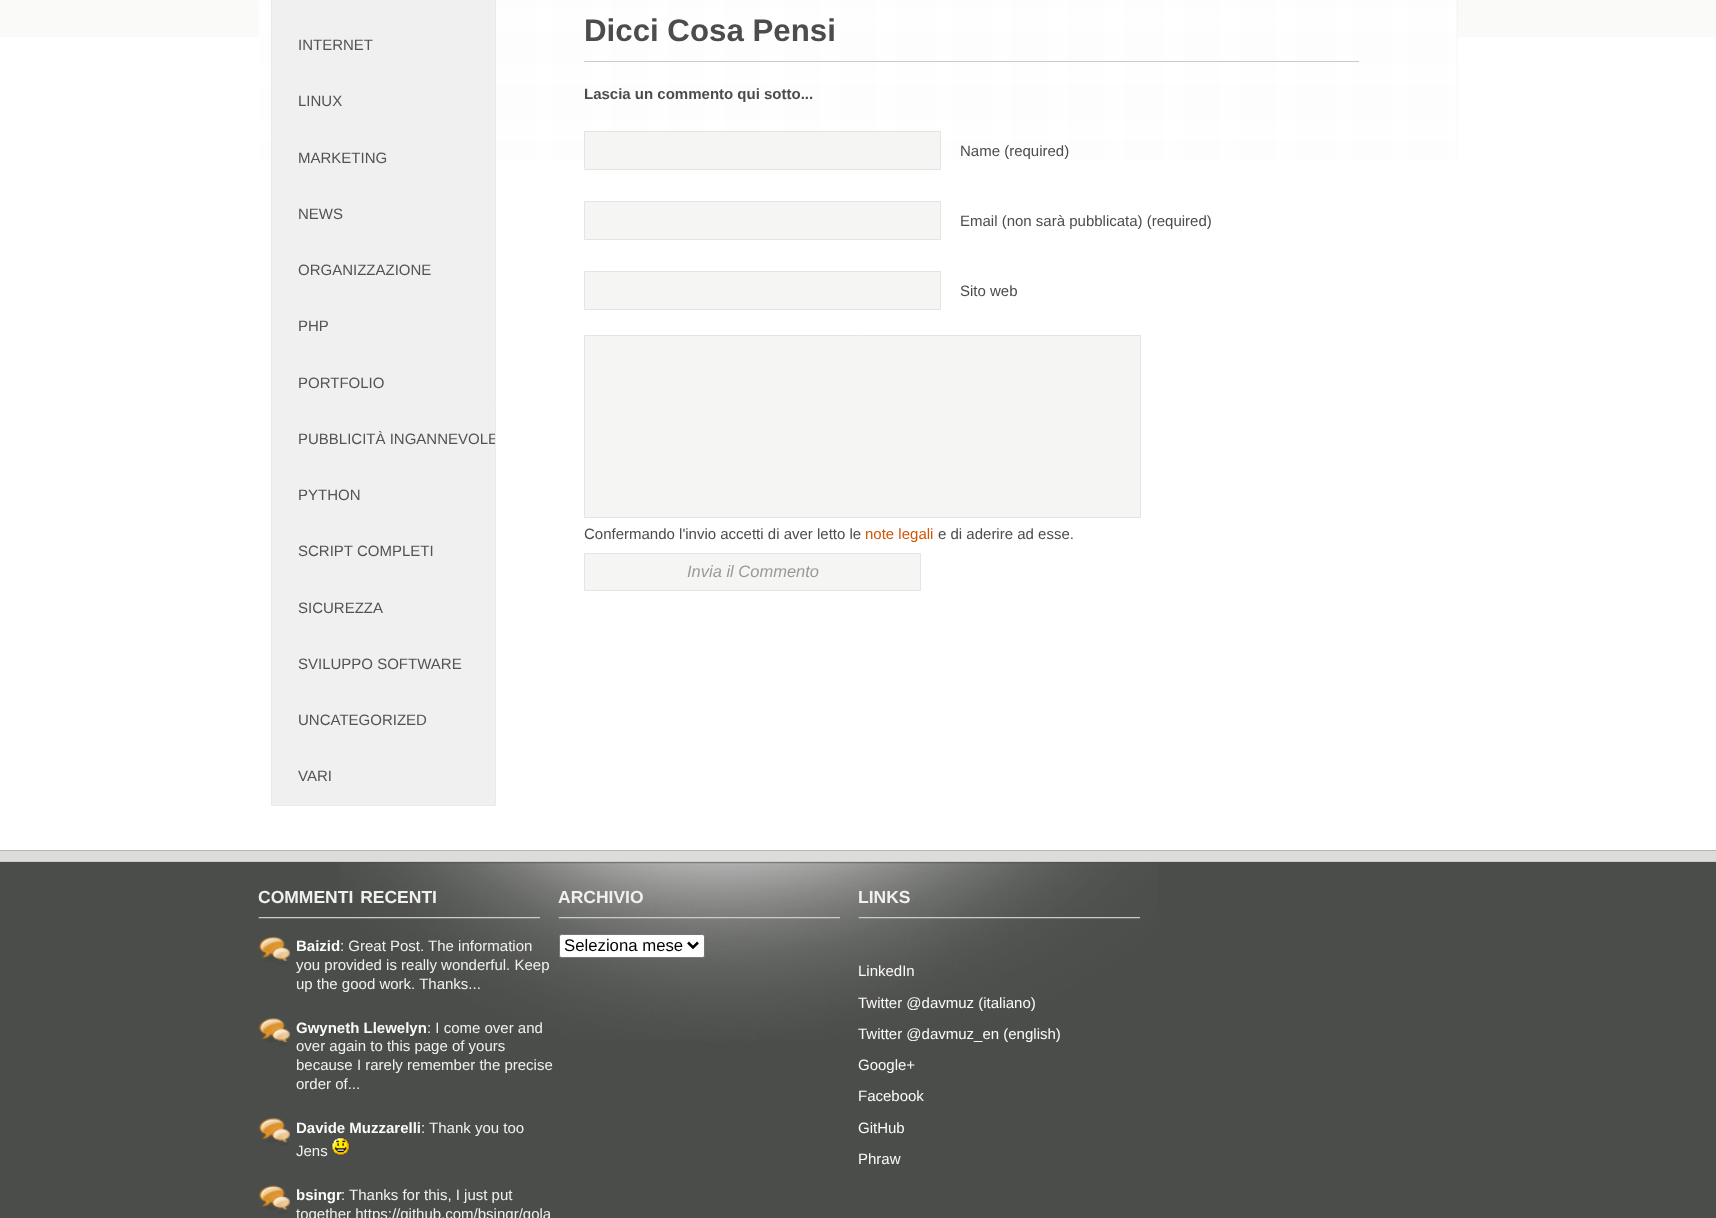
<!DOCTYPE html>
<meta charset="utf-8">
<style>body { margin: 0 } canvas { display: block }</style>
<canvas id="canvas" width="1716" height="1218"></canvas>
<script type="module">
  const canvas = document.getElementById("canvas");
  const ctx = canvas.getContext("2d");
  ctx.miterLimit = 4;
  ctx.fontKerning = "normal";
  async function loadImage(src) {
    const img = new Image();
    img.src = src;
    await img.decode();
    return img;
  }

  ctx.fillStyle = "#4b4d4a";
  ctx.fillRect(0, 0, 1716, 1218);
  ctx.fillStyle = "#ffffff";
  ctx.fillRect(0, 37, 1716, 813);
  ctx.fillStyle = "#fafaf9";
  ctx.fillRect(0, 0, 1716, 37);
  ctx.drawImage(await loadImage("img1.png"), 259, 0, 1199, 160);
  ctx.fillStyle = "#f0f0f0";
  ctx.beginPath();
  ctx.rect(271.5, -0.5, 224, 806);
  ctx.fill();
  ctx.strokeStyle = "#eaeaea";
  ctx.stroke();
  ctx.font = "15px Liberation Sans";
  ctx.fillStyle = "#515450";
  ctx.fillText("INTERNET", 298, 50);
  ctx.fillText("LINUX", 298, 106);
  ctx.fillText("MARKETING", 298, 163);
  ctx.fillText("NEWS", 298, 219);
  ctx.fillText("ORGANIZZAZIONE", 298, 275);
  ctx.fillText("PHP", 298, 331);
  ctx.fillText("PORTFOLIO", 298, 388);
  ctx.save();
  ctx.beginPath();
  ctx.rect(273, 0, 222, 805);
  ctx.clip();
  ctx.fillText("PUBBLICITÀ INGANNEVOLE", 298, 444);
  ctx.restore();
  ctx.fillText("PYTHON", 298, 500);
  ctx.fillText("SCRIPT COMPLETI", 298, 556);
  ctx.fillText("SICUREZZA", 298, 613);
  ctx.fillText("SVILUPPO SOFTWARE", 298, 669);
  ctx.fillText("UNCATEGORIZED", 298, 725);
  ctx.fillText("VARI", 298, 781);
  ctx.fillStyle = "#cdcbcb";
  ctx.fillRect(584, 61, 775, 1);
  ctx.font = "bold 31.25px Liberation Sans";
  ctx.fillStyle = "#4b4d4a";
  ctx.fillText("Dicci Cosa Pensi", 584, 41);
  ctx.font = "bold 15px Liberation Sans";
  ctx.fillText("Lascia un commento qui sotto...", 584, 99);
  ctx.fillStyle = "#f5f5f4";
  ctx.beginPath();
  ctx.rect(584.5, 131.5, 356, 38);
  ctx.fill();
  ctx.strokeStyle = "#e5e3e3";
  ctx.stroke();
  ctx.font = "15px Liberation Sans";
  ctx.fillStyle = "#4b4d4a";
  ctx.fillText("Name (required)", 960, 156);
  ctx.fillStyle = "#f5f5f4";
  ctx.beginPath();
  ctx.rect(584.5, 201.5, 356, 38);
  ctx.fill();
  ctx.stroke();
  ctx.fillStyle = "#4b4d4a";
  ctx.fillText("Email (non sarà pubblicata) (required)", 960, 226);
  ctx.fillStyle = "#f5f5f4";
  ctx.beginPath();
  ctx.rect(584.5, 271.5, 356, 38);
  ctx.fill();
  ctx.stroke();
  ctx.fillStyle = "#4b4d4a";
  ctx.fillText("Sito web", 960, 296);
  ctx.fillStyle = "#f5f5f4";
  ctx.beginPath();
  ctx.rect(584.5, 335.5, 556, 182);
  ctx.fill();
  ctx.stroke();
  ctx.fillStyle = "#4b4d4a";
  ctx.fillText("Confermando l'invio accetti di aver letto le", 584, 539);
  ctx.fillStyle = "#d05606";
  ctx.fillText("note legali", 865, 539);
  ctx.fillStyle = "#4b4d4a";
  ctx.fillText("e di aderire ad esse.", 938, 539);
  ctx.fillStyle = "#f5f5f4";
  ctx.beginPath();
  ctx.rect(584.5, 553.5, 336, 37);
  ctx.fill();
  ctx.stroke();
  ctx.font = "italic 16.5px Liberation Sans";
  ctx.fillStyle = "#9a9a9a";
  ctx.fillText("Invia il Commento", 687, 577);
  ctx.drawImage(await loadImage("img2.png"), 0, 850, 1716, 12);
  ctx.drawImage(await loadImage("img3.png"), 340, 862, 818, 179);
  ctx.drawImage(await loadImage("img4.png"), 258, 917, 282, 2);
  ctx.wordSpacing = "2px";
  ctx.font = "bold 17.5px Liberation Sans";
  ctx.fillStyle = "#f0f0f0";
  ctx.fillText("COMMENTI RECENTI", 258, 903);
  ctx.drawImage(await loadImage("img5.png"), 258, 937, 32, 28);
  ctx.wordSpacing = "0px";
  ctx.font = "bold 15px Liberation Sans";
  ctx.fillStyle = "#fafafa";
  ctx.fillText("Baizid", 296, 951);
  ctx.font = "15px Liberation Sans";
  ctx.fillStyle = "#f0f0f0";
  ctx.fillText(": Great Post. The information", 340, 951);
  ctx.fillText("you provided is really wonderful. Keep", 296, 970);
  ctx.fillText("up the good work. Thanks...", 296, 989);
  ctx.drawImage(await loadImage("img6.png"), 258, 1018, 32, 28);
  ctx.font = "bold 15px Liberation Sans";
  ctx.fillStyle = "#fafafa";
  ctx.fillText("Gwyneth Llewelyn", 296, 1033);
  ctx.font = "15px Liberation Sans";
  ctx.fillStyle = "#f0f0f0";
  ctx.fillText(": I come over and", 427, 1033);
  ctx.fillText("over again to this page of yours", 296, 1051);
  ctx.fillText("because I rarely remember the precise", 296, 1070);
  ctx.fillText("order of...", 296, 1089);
  ctx.drawImage(await loadImage("img6.png"), 258, 1118, 32, 28);
  ctx.font = "bold 15px Liberation Sans";
  ctx.fillStyle = "#fafafa";
  ctx.fillText("Davide Muzzarelli", 296, 1133);
  ctx.font = "15px Liberation Sans";
  ctx.fillStyle = "#f0f0f0";
  ctx.fillText(": Thank you too", 421, 1133);
  ctx.fillText("Jens", 296, 1156);
  ctx.drawImage(await loadImage("img7.png"), 331, 1137, 19, 19);
  ctx.drawImage(await loadImage("img8.png"), 258, 1185, 32, 29);
  ctx.font = "bold 15px Liberation Sans";
  ctx.fillStyle = "#fafafa";
  ctx.fillText("bsingr", 296, 1200);
  ctx.font = "15px Liberation Sans";
  ctx.fillStyle = "#f0f0f0";
  ctx.fillText(": Thanks for this, I just put", 341, 1200);
  ctx.fillText("together https://github.com/bsingr/gola", 296, 1219);
  ctx.drawImage(await loadImage("img9.png"), 558, 917, 282, 2);
  ctx.font = "bold 17.5px Liberation Sans";
  ctx.fillText("ARCHIVIO", 558, 903);
  ctx.fillStyle = "#ffffff";
  ctx.beginPath();
  ctx.roundRect(559.5, 934.5, 145, 23, 2);
  ctx.fill();
  ctx.strokeStyle = "#767676";
  ctx.stroke();
  ctx.beginPath();
  ctx.moveTo(688, 942.5);
  ctx.lineTo(693, 947.5);
  ctx.lineTo(698, 942.5);
  ctx.strokeStyle = "#000000";
  ctx.lineWidth = 2.5;
  ctx.stroke();
  ctx.font = "16.75px Liberation Sans";
  ctx.fillStyle = "#000000";
  ctx.fillText("Seleziona mese", 564, 951);
  ctx.drawImage(await loadImage("img10.png"), 858, 917, 282, 2);
  ctx.font = "bold 17.5px Liberation Sans";
  ctx.fillStyle = "#f0f0f0";
  ctx.fillText("LINKS", 858, 903);
  ctx.font = "15px Liberation Sans";
  ctx.fillStyle = "#fafafa";
  ctx.fillText("LinkedIn", 858, 976);
  ctx.fillText("Twitter @davmuz (italiano)", 858, 1008);
  ctx.fillText("Twitter @davmuz_en (english)", 858, 1039);
  ctx.fillText("Google+", 858, 1070);
  ctx.fillText("Facebook", 858, 1101);
  ctx.fillText("GitHub", 858, 1133);
  ctx.fillText("Phraw", 858, 1164);
</script>
